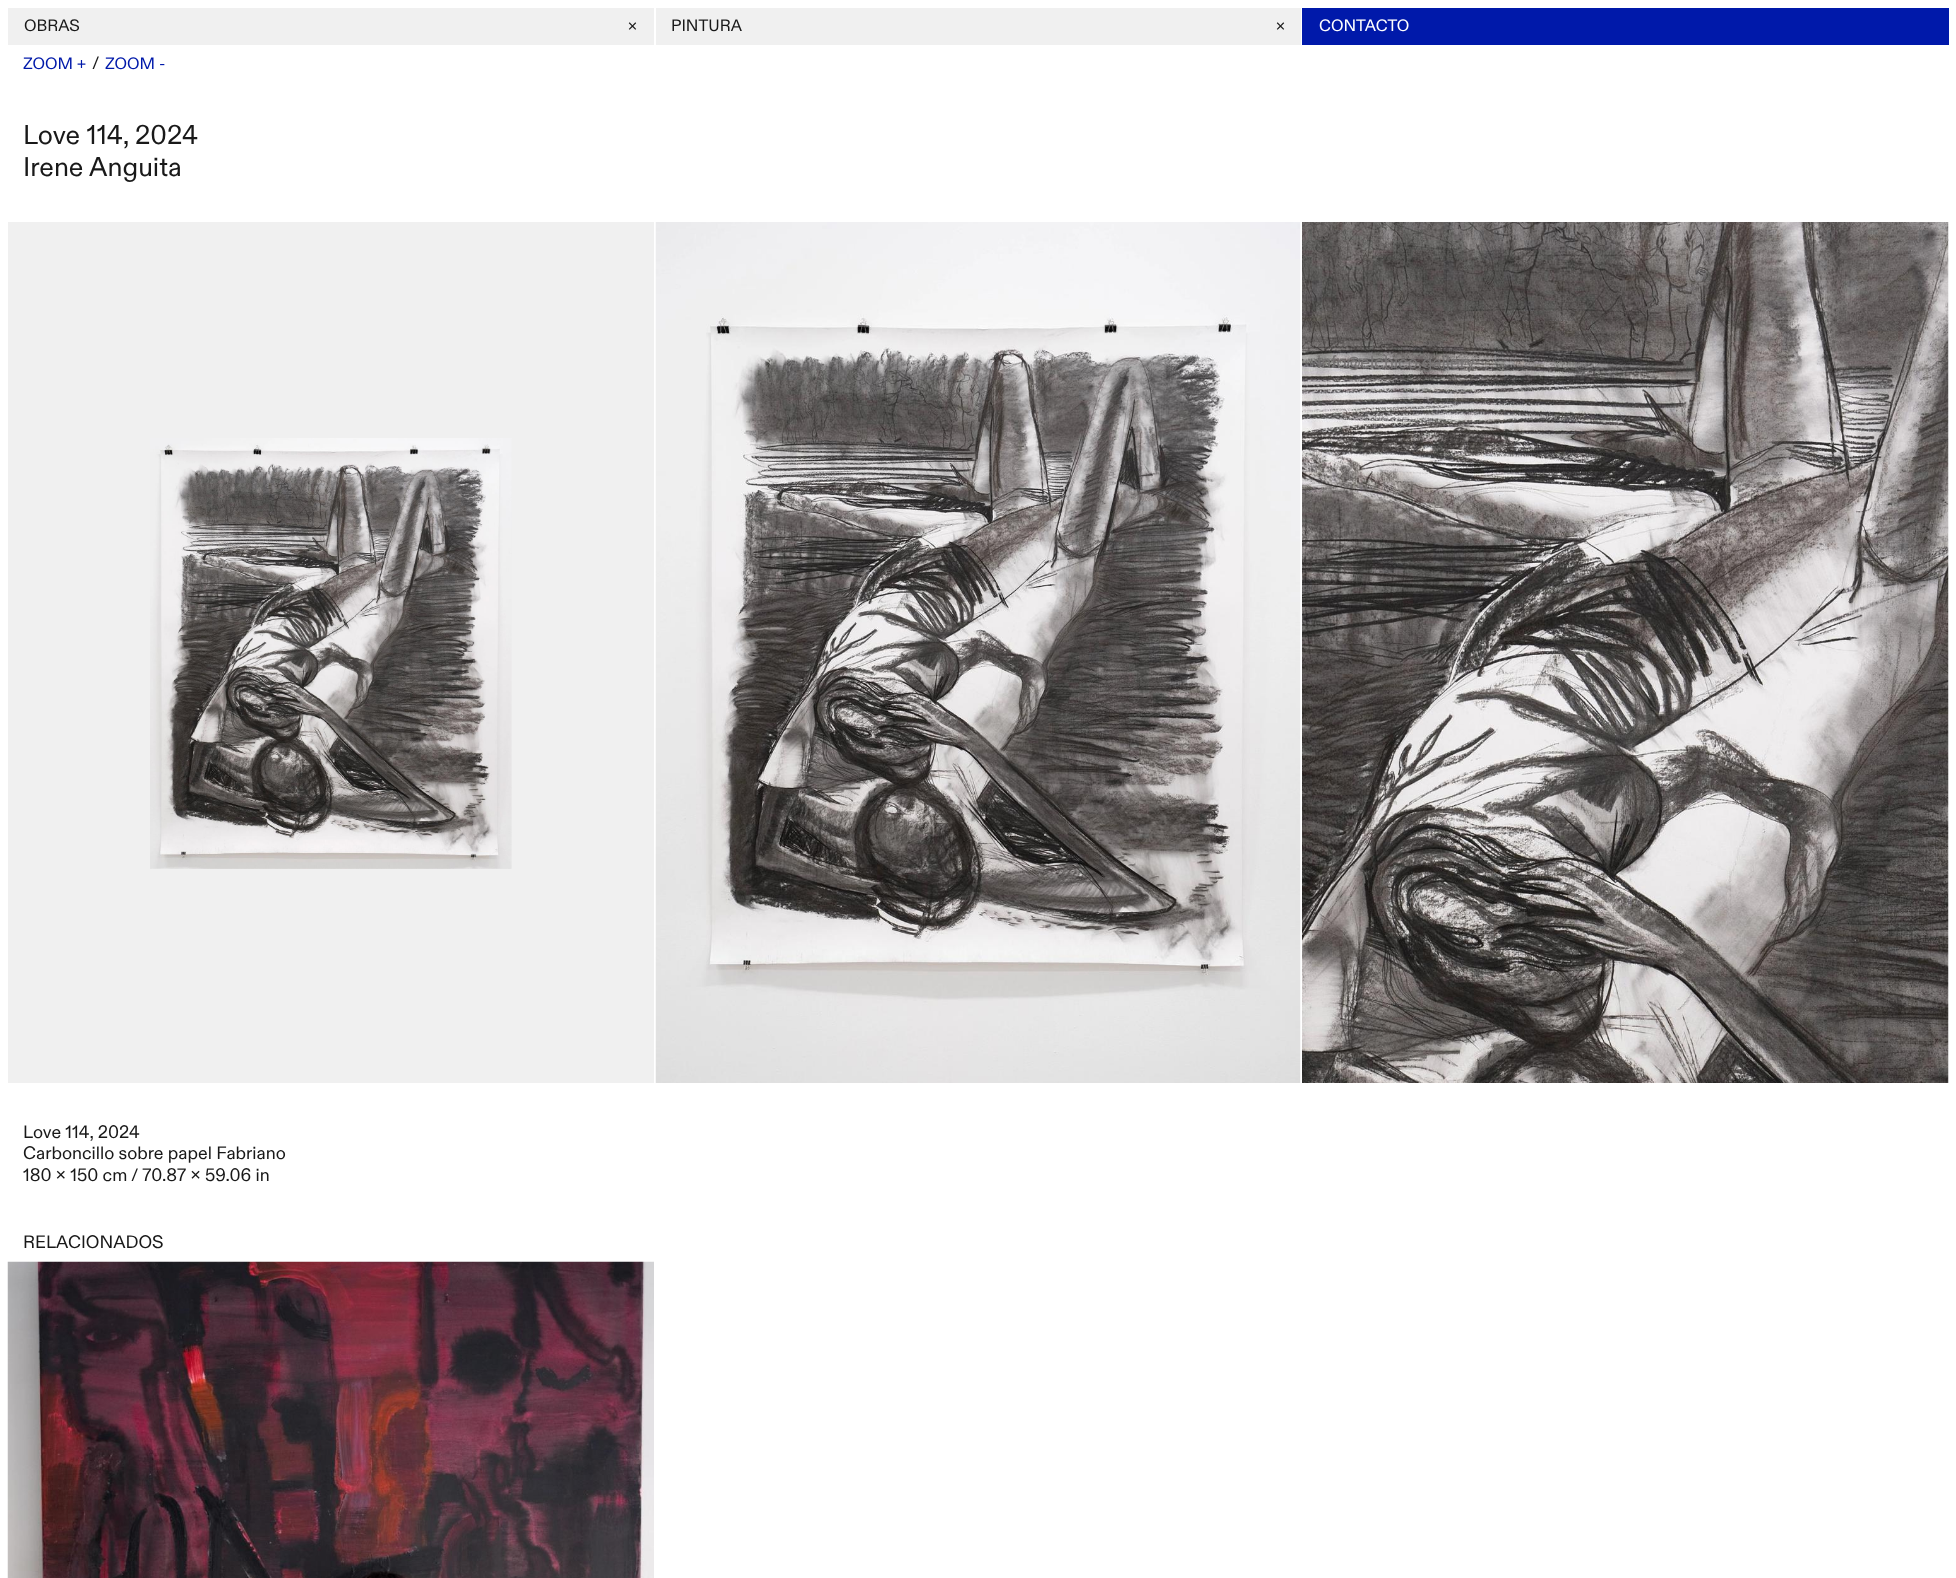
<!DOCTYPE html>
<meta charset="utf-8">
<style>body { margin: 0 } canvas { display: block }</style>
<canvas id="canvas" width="1956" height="1578"></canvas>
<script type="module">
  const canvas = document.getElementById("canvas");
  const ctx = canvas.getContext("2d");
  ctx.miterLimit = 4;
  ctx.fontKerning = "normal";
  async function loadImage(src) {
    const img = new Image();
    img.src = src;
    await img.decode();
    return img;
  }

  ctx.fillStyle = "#ffffff";
  ctx.fillRect(0, 0, 1956, 1578);
  ctx.fillStyle = "#f0f0f0";
  ctx.fillRect(8, 8, 646, 37);
  ctx.font = "16.5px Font";
  ctx.fillStyle = "#191919";
  ctx.fillText("OBRAS", 24, 31);
  ctx.fillText("×", 628, 31);
  ctx.fillStyle = "#f0f0f0";
  ctx.fillRect(656, 8, 645, 37);
  ctx.fillStyle = "#191919";
  ctx.fillText("PINTURA", 671, 31);
  ctx.fillText("×", 1276, 31);
  ctx.fillStyle = "#0019aa";
  ctx.fillRect(1302, 8, 647, 37);
  ctx.fillStyle = "#ffffff";
  ctx.fillText("CONTACTO", 1319, 31);
  ctx.drawImage(await loadImage("img3.png"), 1302, 222, 647, 861);
  ctx.font = "18px Font";
  ctx.fillStyle = "#777474";
  ctx.fillText("info@elchico.gallery", 1317, 368);
  ctx.font = "16.5px Font";
  ctx.fillStyle = "#0019aa";
  ctx.fillText("ZOOM +", 23, 69);
  ctx.font = "18px Font";
  ctx.fillStyle = "#191919";
  ctx.fillText("/", 92, 69);
  ctx.font = "16.5px Font";
  ctx.fillStyle = "#0019aa";
  ctx.fillText("ZOOM -", 105, 69);
  ctx.font = "27px Font";
  ctx.fillStyle = "#191919";
  ctx.fillText("Love 114, 2024", 23, 144);
  ctx.fillText("Irene Anguita", 23, 176);
  ctx.fillStyle = "#f0f0f0";
  ctx.fillRect(8, 222, 646, 861);
  ctx.drawImage(await loadImage("img1.png"), 150, 438, 362, 431);
  ctx.drawImage(await loadImage("img2.png"), 655, 222, 646, 861);
  ctx.font = "18px Font";
  ctx.fillStyle = "#191919";
  ctx.fillText("Love 114, 2024", 23, 1138);
  ctx.fillText("Carboncillo sobre papel Fabriano", 23, 1159);
  ctx.fillText("180 x 150 cm / 70.87 x 59.06 in", 23, 1181);
  ctx.fillText("RELACIONADOS", 23, 1248);
  ctx.drawImage(await loadImage("img4.png"), 7, 1261, 647, 317);
</script>
